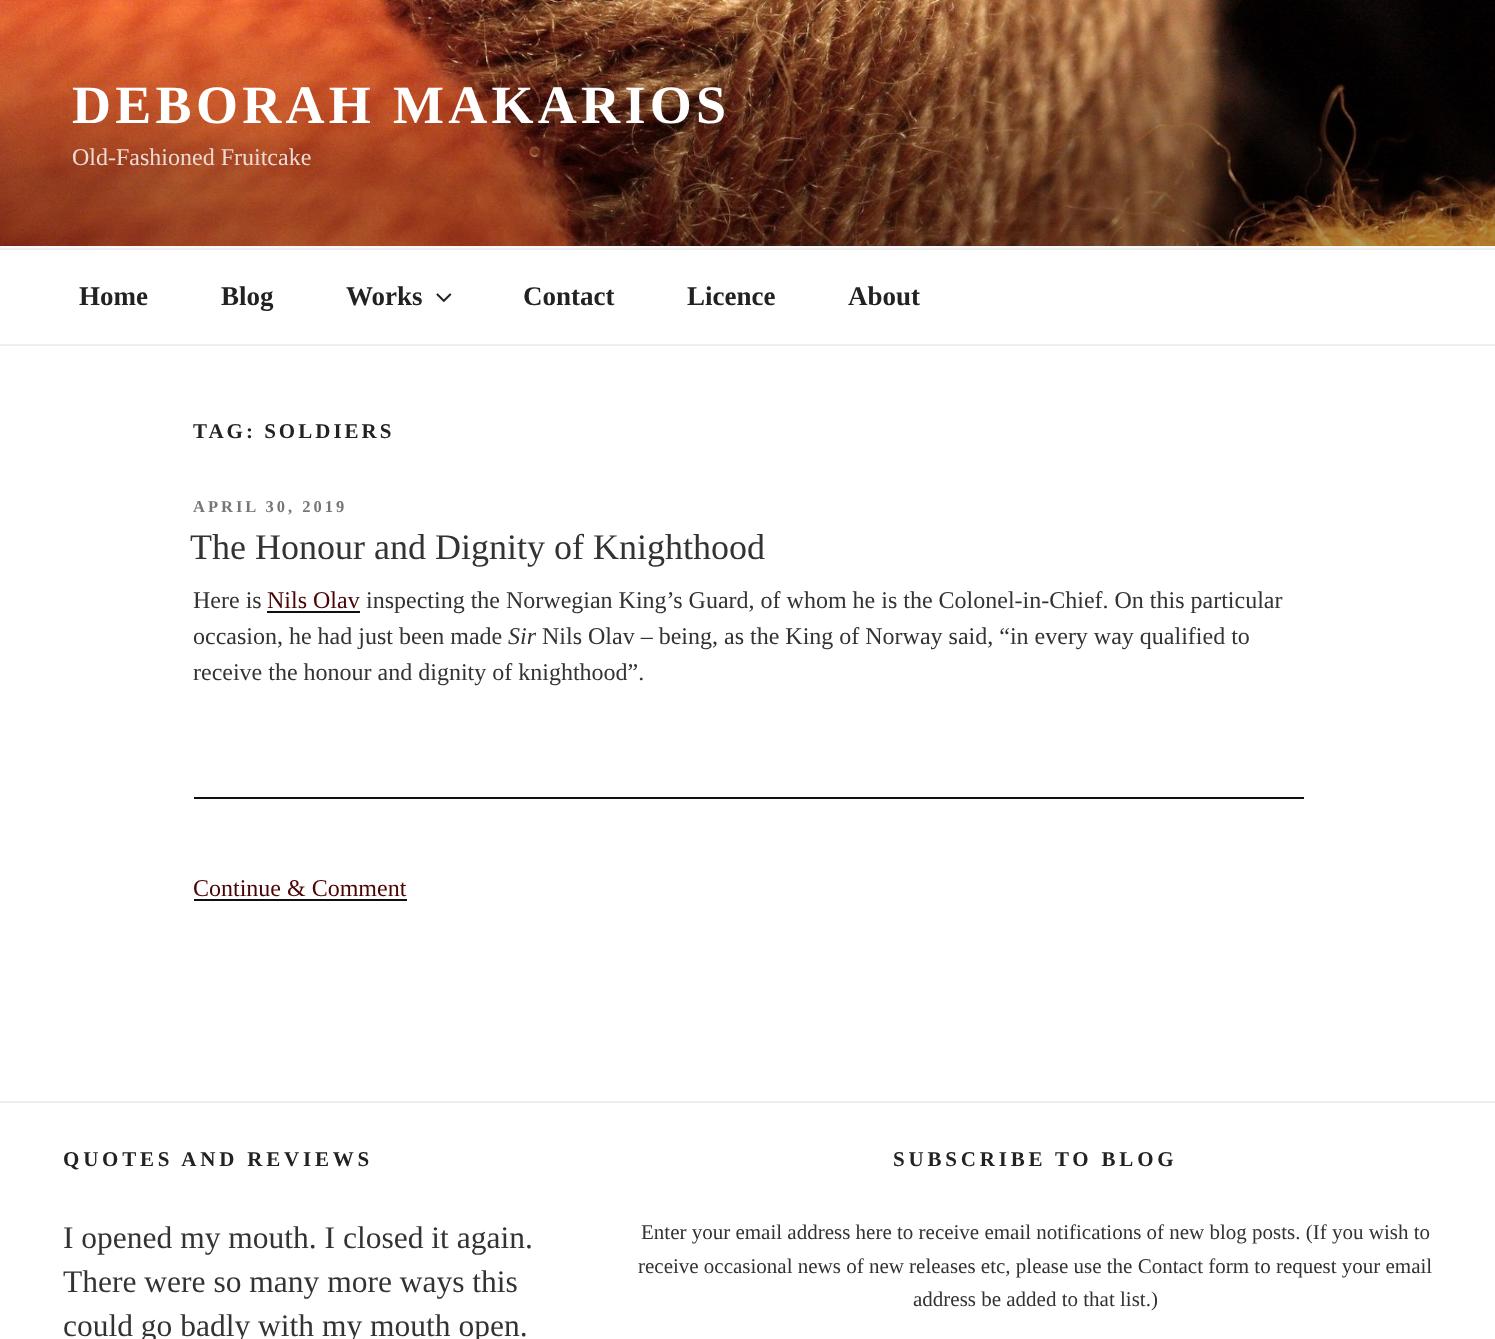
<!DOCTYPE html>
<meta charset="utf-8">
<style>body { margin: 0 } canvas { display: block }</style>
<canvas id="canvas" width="1495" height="1339"></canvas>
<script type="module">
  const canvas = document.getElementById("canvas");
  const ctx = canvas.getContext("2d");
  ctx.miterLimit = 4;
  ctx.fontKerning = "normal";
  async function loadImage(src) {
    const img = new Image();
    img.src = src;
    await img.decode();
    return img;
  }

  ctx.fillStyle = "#ffffff";
  ctx.fillRect(0, 0, 1495, 1339);
  ctx.fillStyle = "#fafafa";
  ctx.fillRect(0, 246, 1495, 2);
  ctx.drawImage(await loadImage("img1.png"), 0, 0, 1495, 246);
  ctx.letterSpacing = "4.3px";
  ctx.font = "bold 54px Liberation Serif";
  ctx.fillStyle = "#ffffff";
  ctx.fillText("DEBORAH MAKARIOS", 72, 123);
  ctx.letterSpacing = "0px";
  ctx.font = "24px Liberation Serif";
  ctx.fillStyle = "#eddad3";
  ctx.fillText("Old-Fashioned Fruitcake", 72, 165);
  ctx.fillStyle = "#eeeeee";
  ctx.fillRect(0, 248, 1495, 2);
  ctx.fillRect(0, 344, 1495, 2);
  ctx.font = "bold 27px Liberation Serif";
  ctx.fillStyle = "#222222";
  ctx.fillText("Home", 79, 305);
  ctx.fillText("Blog", 221, 305);
  ctx.fillText("Works", 346, 305);
  ctx.drawImage(await loadImage("img2.png"), 436, 293, 16, 10);
  ctx.fillText("Contact", 523, 305);
  ctx.fillText("Licence", 687, 305);
  ctx.fillText("About", 848, 305);
  ctx.letterSpacing = "3px";
  ctx.font = "bold 21px Liberation Serif";
  ctx.fillText("TAG: SOLDIERS", 193, 438);
  ctx.font = "bold 16.5px Liberation Serif";
  ctx.fillStyle = "#767676";
  ctx.fillText("APRIL 30, 2019", 193, 512);
  ctx.letterSpacing = "0px";
  ctx.font = "36px Liberation Serif";
  ctx.fillStyle = "#333333";
  ctx.fillText("The Honour and Dignity of Knighthood", 190, 559);
  ctx.font = "24px Liberation Serif";
  ctx.fillText("Here is", 193, 608);
  ctx.fillStyle = "#4a0404";
  ctx.fillText("Nils Olav", 267, 608);
  ctx.fillStyle = "#0f0f0f";
  ctx.fillRect(267, 611, 93, 2);
  ctx.fillStyle = "#333333";
  ctx.fillText("inspecting the Norwegian King’s Guard, of whom he is the Colonel-in-Chief. On this particular", 366, 608);
  ctx.fillText("occasion, he had just been made", 193, 644);
  ctx.font = "italic 24px Liberation Serif";
  ctx.fillText("Sir", 508, 644);
  ctx.font = "24px Liberation Serif";
  ctx.fillText("Nils Olav – being, as the King of Norway said, “in every way qualified to", 542, 644);
  ctx.fillText("receive the honour and dignity of knighthood”.", 193, 680);
  ctx.fillStyle = "#0f0f0f";
  ctx.fillRect(194, 797, 1110, 2);
  ctx.fillStyle = "#4a0404";
  ctx.fillText("Continue & Comment", 193, 896);
  ctx.fillStyle = "#0f0f0f";
  ctx.fillRect(194, 899, 213, 2);
  ctx.fillStyle = "#eeeeee";
  ctx.fillRect(0, 1101, 1495, 2);
  ctx.letterSpacing = "3.8px";
  ctx.font = "bold 21px Liberation Serif";
  ctx.fillStyle = "#222222";
  ctx.fillText("QUOTES AND REVIEWS", 63, 1166);
  ctx.letterSpacing = "0px";
  ctx.font = "31.5px Liberation Serif";
  ctx.fillStyle = "#333333";
  ctx.fillText("I opened my mouth. I closed it again.", 63, 1248);
  ctx.fillText("There were so many more ways this", 63, 1292);
  ctx.fillText("could go badly with my mouth open.", 63, 1336);
  ctx.letterSpacing = "3.8px";
  ctx.font = "bold 21px Liberation Serif";
  ctx.fillStyle = "#222222";
  ctx.fillText("SUBSCRIBE TO BLOG", 893, 1166);
  ctx.letterSpacing = "0px";
  ctx.font = "21px Liberation Serif";
  ctx.fillStyle = "#333333";
  ctx.fillText("Enter your email address here to receive email notifications of new blog posts. (If you wish to", 641, 1239);
  ctx.fillText("receive occasional news of new releases etc, please use the Contact form to request your email", 638, 1273);
  ctx.fillText("address be added to that list.)", 913, 1306);
</script>
